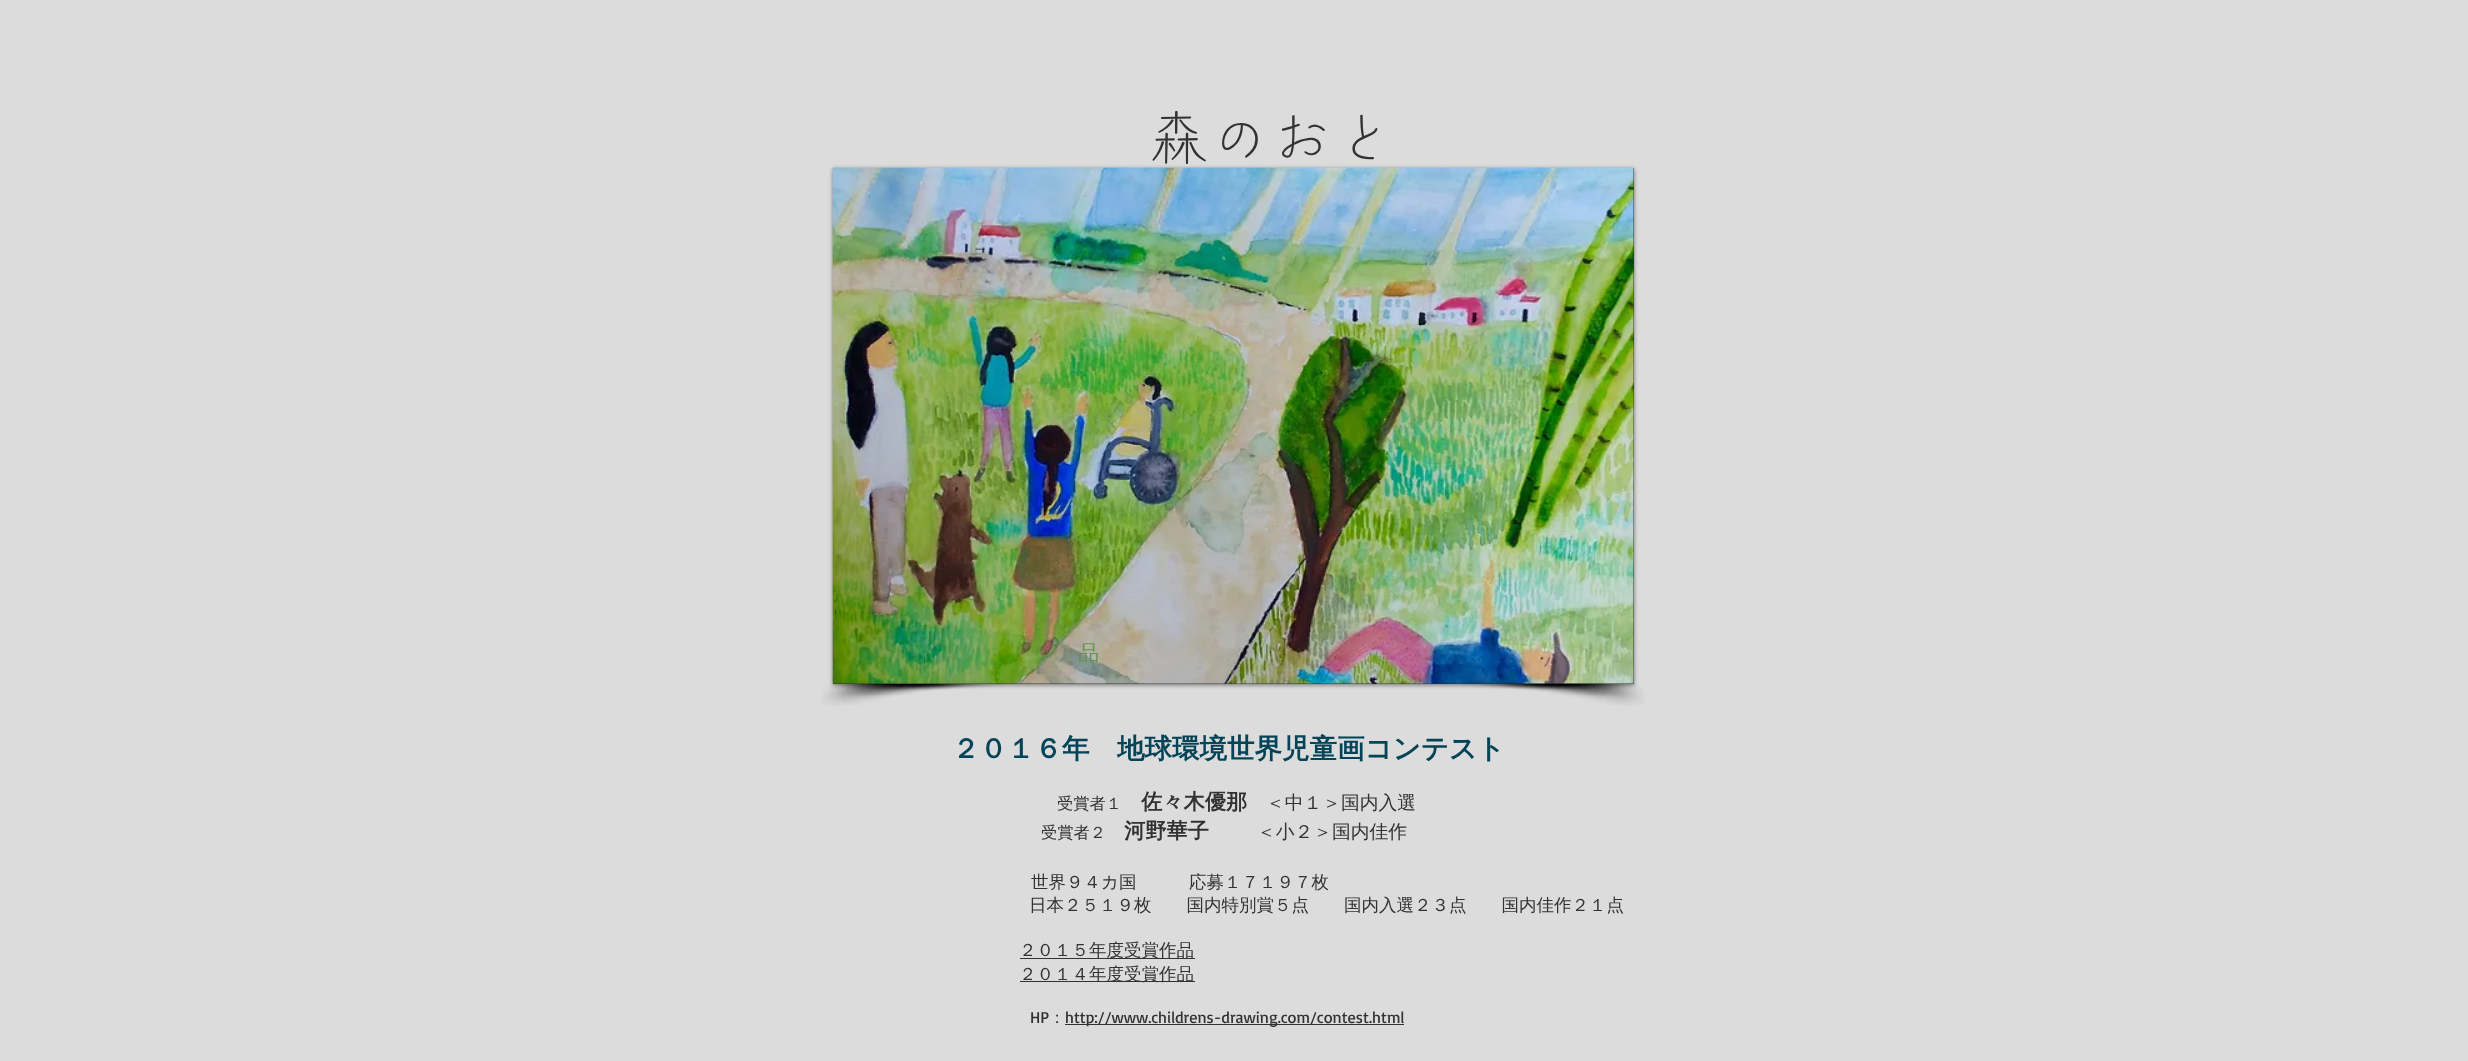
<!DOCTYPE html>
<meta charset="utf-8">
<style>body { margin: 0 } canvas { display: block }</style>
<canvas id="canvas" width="2468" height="1061"></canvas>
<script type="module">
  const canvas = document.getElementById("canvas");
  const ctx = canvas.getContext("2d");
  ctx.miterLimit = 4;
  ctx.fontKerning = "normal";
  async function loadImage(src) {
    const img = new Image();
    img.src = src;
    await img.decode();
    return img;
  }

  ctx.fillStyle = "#dbdcdb";
  ctx.fillRect(0, 0, 2468, 1061);
  ctx.fillStyle = "rgba(0, 0, 0, 0.5)";
  ctx.filter = "blur(2px)";
  ctx.beginPath();
  ctx.rect(833, 169, 801, 516);
  ctx.fill();
  ctx.filter = "none";
  ctx.font = "300 62.5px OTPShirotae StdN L";
  ctx.fillStyle = "#313231";
  ctx.fillText("森のおと", 1146, 161);
  ctx.fillStyle = "#2f2e2e";
  ctx.fillRect(833, 168, 801, 516);
  ctx.drawImage(await loadImage("img2.png"), 822, 683, 183, 23);
  ctx.drawImage(await loadImage("img1.png"), 832, 167, 802, 517);
  ctx.font = "500 21.25px WenQuanYi Zen Hei";
  ctx.fillStyle = "#64944e";
  ctx.fillText("品", 1078, 660);
  ctx.drawImage(await loadImage("img3.png"), 1461, 683, 183, 23);
  ctx.font = "bold 27.5px WenQuanYi Zen Hei";
  ctx.fillStyle = "#034459";
  ctx.fillText("２０１６年　地球環境世界児童画コンテスト", 952, 758);
  ctx.font = "500 16.25px WenQuanYi Zen Hei";
  ctx.fillStyle = "#313231";
  ctx.fillText("受賞者１", 1057, 809);
  ctx.font = "bold 21.25px WenQuanYi Zen Hei";
  ctx.fillText("佐々木優那", 1141, 809);
  ctx.font = "500 18.75px WenQuanYi Zen Hei";
  ctx.fillText("＜中１＞国内入選", 1266, 809);
  ctx.font = "500 16.25px WenQuanYi Zen Hei";
  ctx.fillText("受賞者２", 1041, 838);
  ctx.font = "bold 21.25px WenQuanYi Zen Hei";
  ctx.fillText("河野華子", 1124, 838);
  ctx.font = "500 18.75px WenQuanYi Zen Hei";
  ctx.fillText("＜小２＞国内佳作", 1257, 838);
  ctx.font = "500 17.5px WenQuanYi Zen Hei";
  ctx.fillText("世界９４カ国　　　応募１７１９７枚", 1031, 888);
  ctx.fillText("日本２５１９枚　　国内特別賞５点　　国内入選２３点　　国内佳作２１点", 1029, 911);
  ctx.fillRect(1020, 958, 175, 1);
  ctx.fillText("２０１５年度受賞作品", 1019, 956);
  ctx.fillRect(1020, 981, 175, 1);
  ctx.fillText("２０１４年度受賞作品", 1019, 980);
  ctx.font = "16.25px Basic";
  ctx.fillText("HP", 1030, 1023);
  ctx.font = "500 16.25px WenQuanYi Zen Hei";
  ctx.fillText("：", 1049, 1023);
  ctx.fillRect(1065, 1024, 339, 1);
  ctx.font = "16.25px Basic";
  ctx.fillText("http://www.childrens-drawing.com/contest.html", 1065, 1023);
</script>
